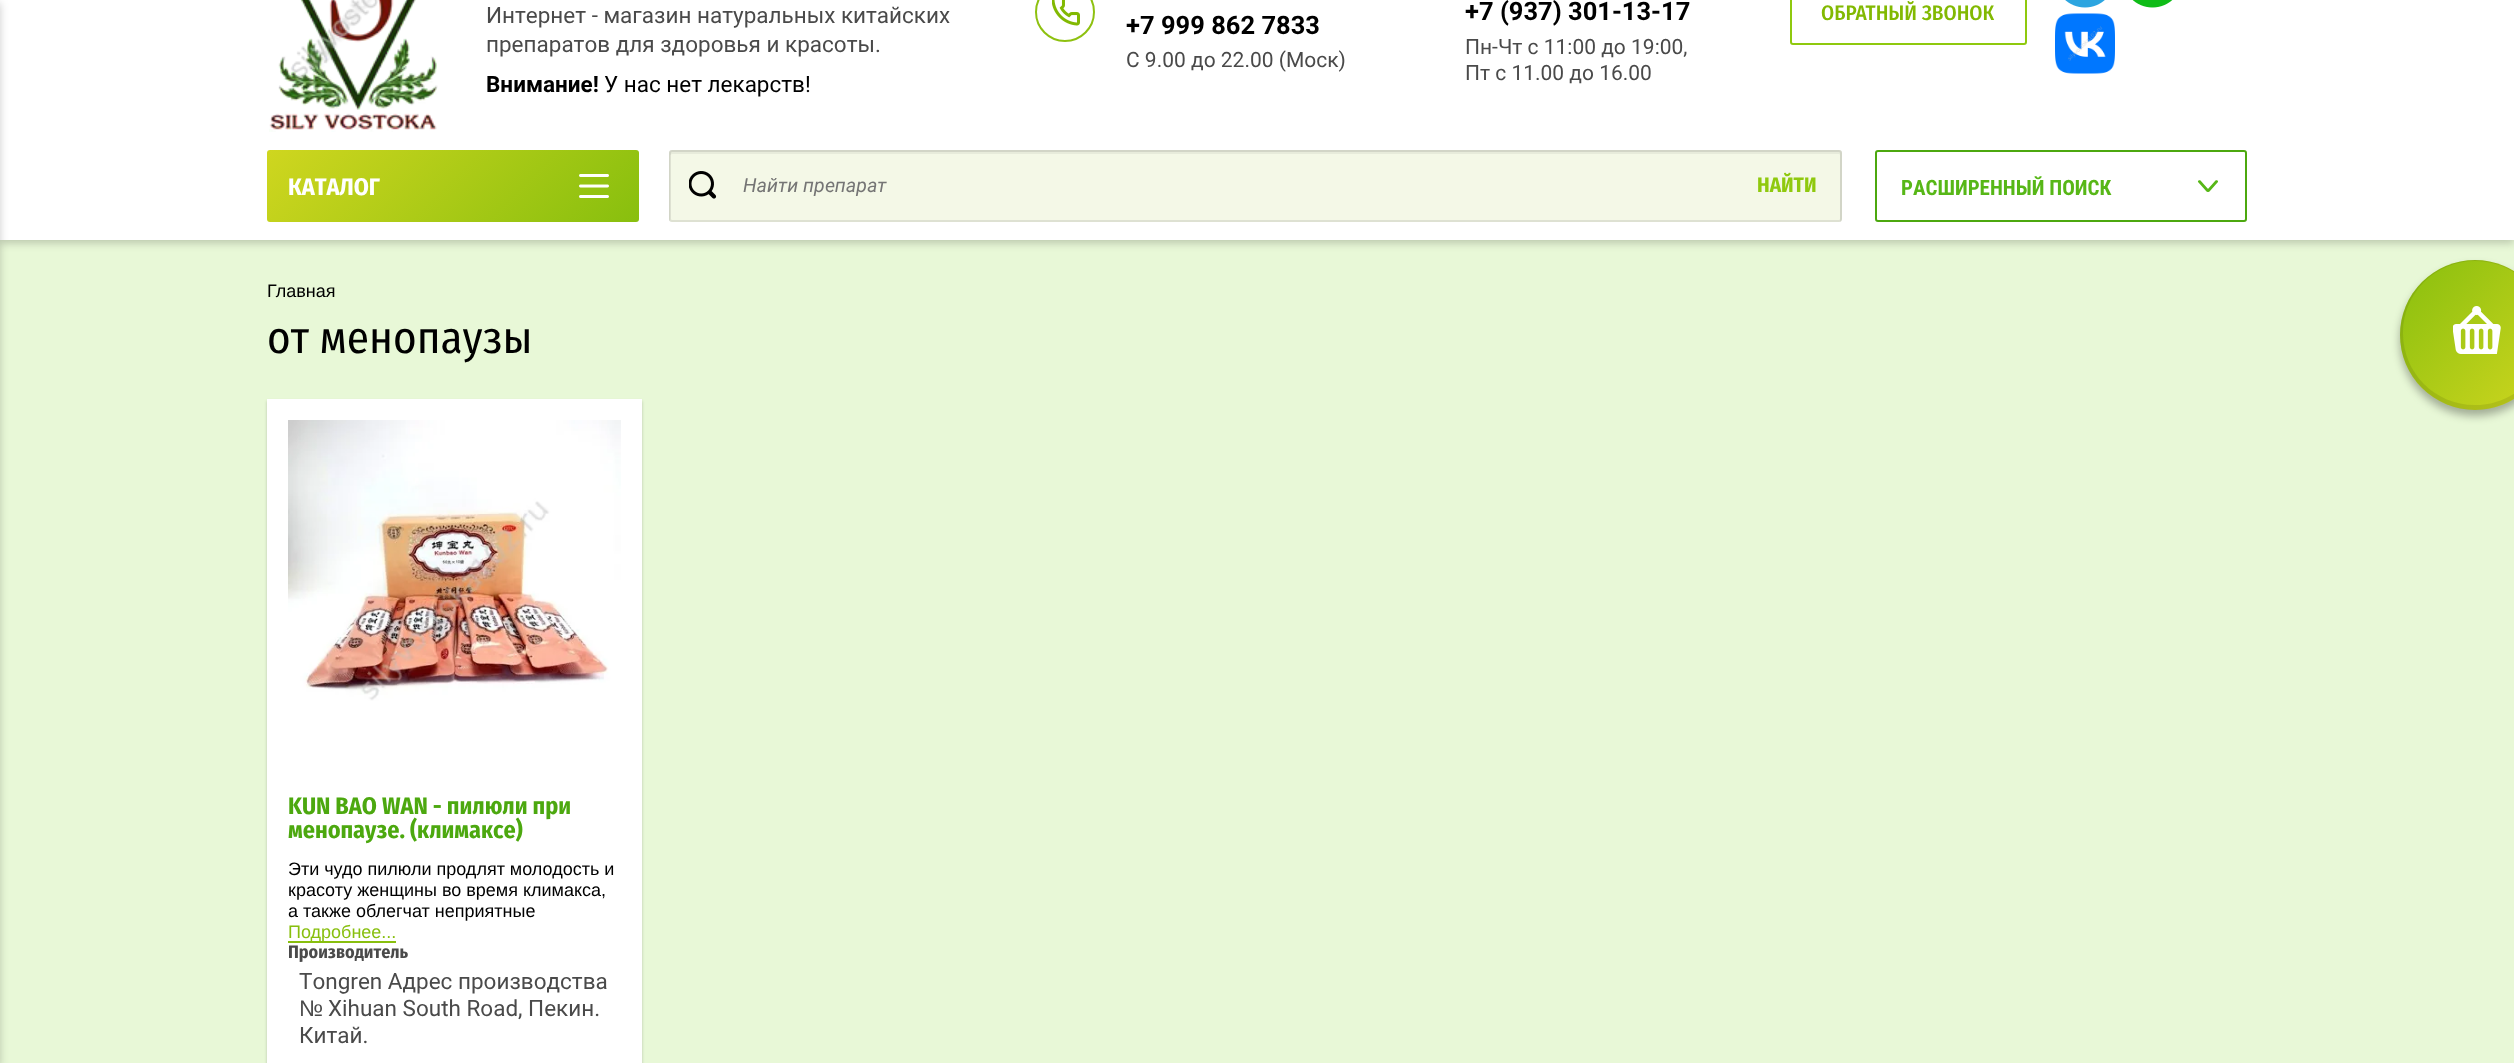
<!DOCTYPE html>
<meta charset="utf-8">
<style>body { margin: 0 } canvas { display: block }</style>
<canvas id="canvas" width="2514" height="1063"></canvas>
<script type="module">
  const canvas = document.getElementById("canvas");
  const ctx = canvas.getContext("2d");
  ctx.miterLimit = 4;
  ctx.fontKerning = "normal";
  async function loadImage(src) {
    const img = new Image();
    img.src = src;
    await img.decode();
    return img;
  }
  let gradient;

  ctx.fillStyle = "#e8f8d7";
  ctx.fillRect(0, 0, 2514, 1063);
  ctx.fillStyle = "rgba(0, 0, 0, 0.2)";
  ctx.filter = "blur(4.5px)";
  ctx.beginPath();
  ctx.rect(0, -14, 2514, 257);
  ctx.fill();
  ctx.filter = "none";
  ctx.fillStyle = "#ffffff";
  ctx.fillRect(0, 0, 2514, 240);
  ctx.fillStyle = "rgba(0, 0, 0, 0.2)";
  ctx.filter = "blur(4.5px)";
  ctx.beginPath();
  ctx.rect(-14, 3, 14, 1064);
  ctx.fill();
  ctx.filter = "none";
  ctx.drawImage(await loadImage("img1.png"), 269, 0, 169, 132);
  ctx.font = "22.5px Roboto";
  ctx.fillStyle = "#4a4a4a";
  ctx.fillText("Интернет - магазин натуральных китайских", 486, 23);
  ctx.fillText("препаратов для здоровья и красоты.", 486, 52);
  ctx.font = "bold 22.5px Roboto";
  ctx.fillStyle = "#000000";
  ctx.fillText("Внимание!", 486, 92);
  ctx.font = "22.5px Roboto";
  ctx.fillText("У нас нет лекарств!", 604, 92);
  ctx.drawImage(await loadImage("img2.png"), 1052, 0, 28, 26);
  ctx.beginPath();
  ctx.arc(1065, 12, 29, 0, Math.PI * 2);
  ctx.strokeStyle = "#8ec110";
  ctx.lineWidth = 2;
  ctx.stroke();
  ctx.font = "bold 25.5px Roboto";
  ctx.fillText("+7 999 862 7833", 1126, 34);
  ctx.font = "21px Roboto";
  ctx.fillStyle = "#4a4a4a";
  ctx.fillText("С 9.00 до 22.00 (Моск)", 1126, 67);
  ctx.font = "bold 25.5px Roboto";
  ctx.fillStyle = "#000000";
  ctx.fillText("+7 (937) 301-13-17", 1465, 20);
  ctx.font = "21px Roboto";
  ctx.fillStyle = "#4a4a4a";
  ctx.fillText("Пн-Чт с 11:00 до 19:00,", 1465, 54);
  ctx.fillText("Пт с 11.00 до 16.00", 1465, 80);
  ctx.beginPath();
  ctx.roundRect(1791, -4, 235, 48, 2);
  ctx.strokeStyle = "#8fc90e";
  ctx.stroke();
  ctx.font = "500 21px Fira Sans Condensed";
  ctx.fillStyle = "#82b902";
  ctx.fillText("ОБРАТНЫЙ ЗВОНОК", 1821, 20);
  ctx.drawImage(await loadImage("img3.png"), 2065, 0, 40, 8);
  ctx.drawImage(await loadImage("img4.png"), 2132, 0, 41, 8);
  ctx.drawImage(await loadImage("img5.png"), 2055, 13, 60, 61);
  gradient = ctx.createLinearGradient(342, 75, 564, 297);
  gradient.addColorStop(0, "#cfd61f");
  gradient.addColorStop(1, "#88bf0e");
  ctx.fillStyle = gradient;
  ctx.beginPath();
  ctx.roundRect(267, 150, 372, 72, 3);
  ctx.fill();
  ctx.font = "bold 24px Fira Sans Condensed";
  ctx.fillStyle = "#ffffff";
  ctx.fillText("КАТАЛОГ", 288, 195);
  ctx.drawImage(await loadImage("img6.png"), 579, 174, 30, 24);
  ctx.fillStyle = "#f4f8e7";
  ctx.beginPath();
  ctx.roundRect(669, 150, 1173, 72, 3);
  ctx.fill();
  ctx.beginPath();
  ctx.roundRect(670, 151, 1171, 70, 2);
  ctx.strokeStyle = "rgba(32, 32, 32, 0.1)";
  ctx.stroke();
  ctx.fillStyle = "rgba(0, 0, 0, 0.05)";
  ctx.beginPath();
  ctx.moveTo(672, 154);
  ctx.lineTo(1839, 154);
  ctx.bezierCurveTo(1840, 154, 1840, 155, 1840, 156);
  ctx.lineTo(1840, 222);
  ctx.bezierCurveTo(1841, 221, 1842, 220, 1842, 219);
  ctx.lineTo(1842, 153);
  ctx.bezierCurveTo(1842, 151, 1841, 150, 1839, 150);
  ctx.lineTo(672, 150);
  ctx.bezierCurveTo(670, 150, 669, 151, 669, 153);
  ctx.lineTo(669, 219);
  ctx.bezierCurveTo(669, 220, 669, 221, 670, 221);
  ctx.lineTo(670, 155);
  ctx.closePath();
  ctx.fill();
  ctx.drawImage(await loadImage("img7.png"), 689, 171, 28, 28);
  ctx.font = "italic 19.5px Roboto";
  ctx.fillStyle = "#757575";
  ctx.fillText("Найти препарат", 743, 192);
  ctx.font = "bold 21px Fira Sans Condensed";
  ctx.fillStyle = "#8fc90e";
  ctx.fillText("НАЙТИ", 1757, 192);
  ctx.beginPath();
  ctx.roundRect(1876, 151, 370, 70, 2);
  ctx.strokeStyle = "#4ca80f";
  ctx.stroke();
  ctx.font = "bold 21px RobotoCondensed";
  ctx.fillStyle = "#57b717";
  ctx.fillText("РАСШИРЕННЫЙ ПОИСК", 1901, 195);
  ctx.beginPath();
  ctx.moveTo(2217.5, 182.5);
  ctx.lineTo(2209.5, 191.5);
  ctx.bezierCurveTo(2209, 192, 2208, 192, 2207.5, 191.5);
  ctx.bezierCurveTo(2207, 191, 2206.5, 190, 2207.5, 189.5);
  ctx.lineTo(2215.5, 180.5);
  ctx.bezierCurveTo(2216, 180, 2217, 180, 2217.5, 180.5);
  ctx.bezierCurveTo(2218, 181, 2218.5, 182, 2217.5, 182.5);
  ctx.closePath();
  ctx.fill();
  ctx.beginPath();
  ctx.moveTo(2200.5, 180.5);
  ctx.lineTo(2208.5, 189.5);
  ctx.bezierCurveTo(2209.5, 190, 2209, 191, 2208.5, 191.5);
  ctx.bezierCurveTo(2208, 192, 2207, 192, 2206.5, 191.5);
  ctx.lineTo(2198.5, 182.5);
  ctx.bezierCurveTo(2197.5, 182, 2198, 181, 2198.5, 180.5);
  ctx.bezierCurveTo(2199, 180, 2200, 180, 2200.5, 180.5);
  ctx.closePath();
  ctx.fill();
  ctx.font = "18px Liberation Sans";
  ctx.fillStyle = "#000000";
  ctx.fillText("Главная", 267, 297);
  ctx.font = "45px Fira Sans Condensed";
  ctx.fillText("от менопаузы", 267, 353);
  ctx.fillStyle = "rgba(0, 0, 0, 0.2)";
  ctx.filter = "blur(1.5px)";
  ctx.beginPath();
  ctx.rect(267, 401, 375, 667);
  ctx.fill();
  ctx.filter = "none";
  ctx.fillStyle = "#ffffff";
  ctx.fillRect(267, 399, 375, 664);
  ctx.drawImage(await loadImage("img8.png"), 288, 420, 333, 281);
  ctx.font = "bold 24px Fira Sans Condensed";
  ctx.fillStyle = "#4ca80f";
  ctx.fillText("KUN BAO WAN - пилюли при", 288, 814);
  ctx.fillText("менопаузе. (климаксе)", 288, 838);
  ctx.font = "18px Liberation Sans";
  ctx.fillStyle = "#000000";
  ctx.fillText("Эти чудо пилюли продлят молодость и", 288, 875);
  ctx.fillText("красоту женщины во время климакса,", 288, 896);
  ctx.fillText("а также облегчат неприятные", 288, 917);
  ctx.fillStyle = "#88bf0e";
  ctx.fillRect(288, 941, 108, 2);
  ctx.fillText("Подробнее...", 288, 938);
  ctx.font = "bold 18px Fira Sans Condensed";
  ctx.fillStyle = "#4a4a4a";
  ctx.fillText("Производитель", 288, 958);
  ctx.font = "22.5px Roboto";
  ctx.fillText("Tongren Адрес производства", 299, 989);
  ctx.font = "22.5px Liberation Sans";
  ctx.fillText("№", 299, 1016);
  ctx.font = "22.5px Roboto";
  ctx.fillText("Xihuan South Road, Пекин.", 328, 1016);
  ctx.fillText("Китай.", 299, 1043);
  ctx.fillStyle = "rgba(0, 0, 0, 0.3)";
  ctx.filter = "blur(4px)";
  ctx.beginPath();
  ctx.roundRect(2400, 266, 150, 150, 75);
  ctx.fill();
  ctx.filter = "none";
  gradient = ctx.createLinearGradient(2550, 410, 2400, 260);
  gradient.addColorStop(0, "#cfd61f");
  gradient.addColorStop(1, "#88bf0e");
  ctx.fillStyle = gradient;
  ctx.beginPath();
  ctx.arc(2475, 335, 75, 0, Math.PI * 2);
  ctx.fill();
  ctx.fillStyle = "rgba(0, 0, 0, 0.09)";
  ctx.beginPath();
  ctx.moveTo(2475, 260);
  ctx.bezierCurveTo(2434, 260, 2400, 294, 2400, 335);
  ctx.bezierCurveTo(2400, 376, 2434, 410, 2475, 410);
  ctx.bezierCurveTo(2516, 410, 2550, 376, 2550, 335);
  ctx.bezierCurveTo(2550, 294, 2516, 260, 2475, 260);
  ctx.closePath();
  ctx.moveTo(2475, 261);
  ctx.bezierCurveTo(2435, 261, 2403, 293, 2403, 333);
  ctx.bezierCurveTo(2403, 373, 2435, 405, 2475, 405);
  ctx.bezierCurveTo(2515, 405, 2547, 373, 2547, 333);
  ctx.bezierCurveTo(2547, 293, 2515, 261, 2475, 261);
  ctx.closePath();
  ctx.fill("evenodd");
  ctx.drawImage(await loadImage("img9.png"), 2453, 306, 48, 48);
</script>
